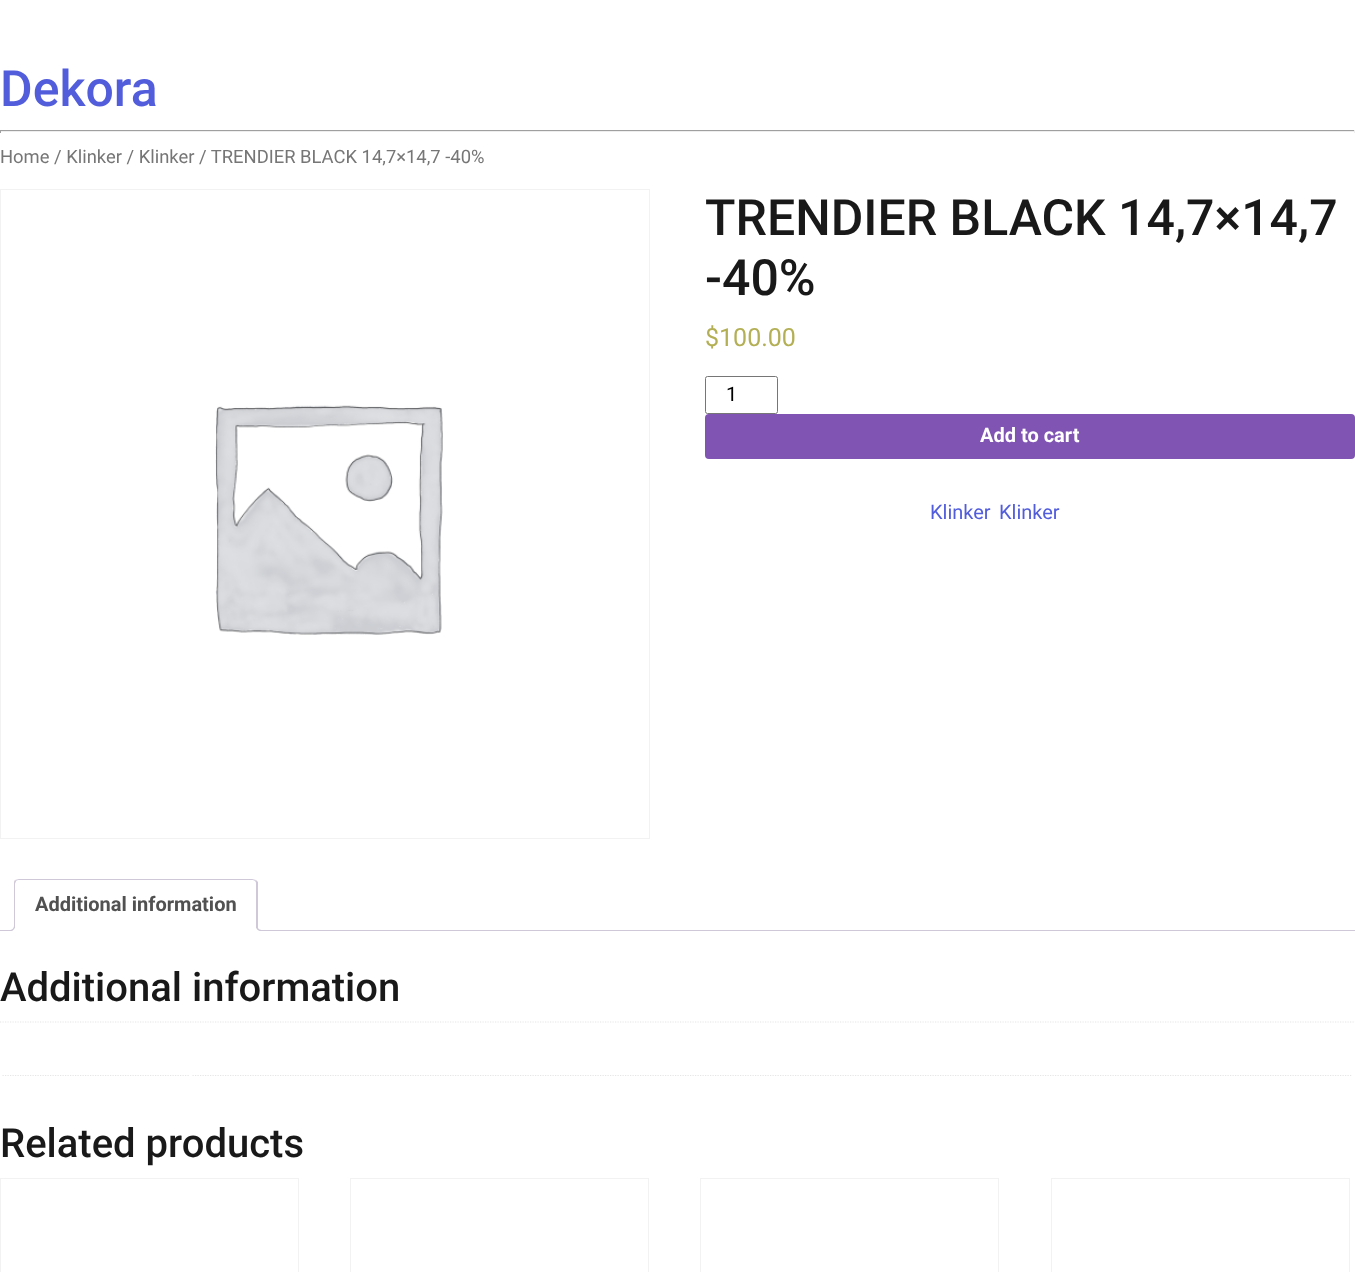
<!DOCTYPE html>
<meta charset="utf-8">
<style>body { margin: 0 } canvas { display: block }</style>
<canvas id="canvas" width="1355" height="1272"></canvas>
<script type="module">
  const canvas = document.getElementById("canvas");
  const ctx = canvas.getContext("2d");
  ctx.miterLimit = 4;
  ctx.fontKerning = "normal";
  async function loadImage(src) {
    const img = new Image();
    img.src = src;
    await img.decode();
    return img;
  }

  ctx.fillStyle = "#ffffff";
  ctx.fillRect(0, 0, 1355, 1272);
  ctx.font = "500 50px Roboto";
  ctx.fillStyle = "#525ddc";
  ctx.fillText("Dekora", 0, 106);
  ctx.fillStyle = "#9f9f9f";
  ctx.fillRect(0, 130, 1355, 1);
  ctx.fillStyle = "#eeeeee";
  ctx.fillRect(1354, 130, 1, 3);
  ctx.fillRect(0, 131, 1355, 1);
  ctx.fillStyle = "#9f9f9f";
  ctx.fillRect(0, 130, 1, 3);
  ctx.font = "18.4px Roboto";
  ctx.fillStyle = "#767676";
  ctx.fillText("Home / Klinker / Klinker / TRENDIER BLACK 14,7×14,7 -40%", 0, 163);
  ctx.strokeStyle = "#f2f2f2";
  ctx.strokeRect(0.5, 189.5, 649, 649);
  ctx.drawImage(await loadImage("img1.png"), 215, 405, 228, 230);
  ctx.font = "500 50px Roboto";
  ctx.fillStyle = "#1a1919";
  ctx.fillText("TRENDIER BLACK 14,7×14,7", 705, 235);
  ctx.fillText("-40%", 705, 295);
  ctx.font = "25px Roboto";
  ctx.fillStyle = "#b3af54";
  ctx.fillText("$100.00", 705, 346);
  ctx.beginPath();
  ctx.roundRect(705.5, 376.5, 72, 37, 2);
  ctx.strokeStyle = "#767676";
  ctx.stroke();
  ctx.font = "20px Roboto";
  ctx.fillStyle = "#000000";
  ctx.fillText("1", 726, 401);
  ctx.fillStyle = "#7f54b3";
  ctx.beginPath();
  ctx.roundRect(705, 414, 650, 45, 4);
  ctx.fill();
  ctx.font = "bold 20px Roboto";
  ctx.fillStyle = "#ffffff";
  ctx.fillText("Add to cart", 980, 442);
  ctx.font = "20px Roboto";
  ctx.fillStyle = "#525ddc";
  ctx.fillText("Klinker", 930, 519);
  ctx.fillText("Klinker", 999, 519);
  ctx.fillStyle = "#cfc8d8";
  ctx.fillRect(0, 930, 1355, 1);
  ctx.fillStyle = "#ffffff";
  ctx.beginPath();
  ctx.roundRect(14, 879, 244, 52, [5, 5, 0, 0]);
  ctx.fill();
  ctx.fillStyle = "#cfc8d8";
  ctx.beginPath();
  ctx.moveTo(19, 879);
  ctx.bezierCurveTo(18, 879, 16, 880, 15, 880);
  ctx.lineTo(16, 881);
  ctx.bezierCurveTo(17, 880, 18, 880, 19, 880);
  ctx.lineTo(252, 880);
  ctx.bezierCurveTo(253, 880, 254, 880, 255, 881);
  ctx.lineTo(256, 880);
  ctx.lineTo(252, 879);
  ctx.closePath();
  ctx.fill();
  ctx.beginPath();
  ctx.moveTo(256, 880);
  ctx.lineTo(258, 882);
  ctx.lineTo(258, 931);
  ctx.lineTo(256, 930);
  ctx.lineTo(256, 884);
  ctx.bezierCurveTo(256, 883, 256, 882, 255, 881);
  ctx.closePath();
  ctx.fill();
  ctx.fillStyle = "#ffffff";
  ctx.beginPath();
  ctx.moveTo(257, 931);
  ctx.lineTo(14, 931);
  ctx.lineTo(15, 930);
  ctx.lineTo(256, 930);
  ctx.closePath();
  ctx.fill();
  ctx.fillStyle = "#cfc8d8";
  ctx.beginPath();
  ctx.moveTo(15, 880);
  ctx.bezierCurveTo(14, 881, 14, 882, 14, 884);
  ctx.lineTo(14, 931);
  ctx.lineTo(15, 930);
  ctx.lineTo(15, 884);
  ctx.bezierCurveTo(15, 883, 16, 882, 16, 881);
  ctx.closePath();
  ctx.fill();
  ctx.font = "bold 20px Roboto";
  ctx.fillStyle = "#515151";
  ctx.fillText("Additional information", 35, 911);
  ctx.save();
  ctx.beginPath();
  ctx.rect(0, 879, 1355, 52);
  ctx.clip();
  ctx.fillStyle = "#ffffff";
  ctx.beginPath();
  ctx.moveTo(11, 931);
  ctx.lineTo(11, 934);
  ctx.bezierCurveTo(15.5, 934, 18, 933, 18, 928);
  ctx.lineTo(14.5, 928);
  ctx.bezierCurveTo(14, 929.5, 12.5, 931, 11, 931);
  ctx.closePath();
  ctx.fill();
  ctx.restore();
  ctx.fillStyle = "#cfc8d8";
  ctx.beginPath();
  ctx.moveTo(9, 925);
  ctx.lineTo(15, 925);
  ctx.bezierCurveTo(15, 929.5, 13, 931, 9, 931);
  ctx.closePath();
  ctx.moveTo(9, 925);
  ctx.lineTo(14, 925);
  ctx.bezierCurveTo(14, 928.5, 12.5, 930, 9, 930);
  ctx.closePath();
  ctx.fill("evenodd");
  ctx.save();
  ctx.beginPath();
  ctx.rect(0, 879, 1355, 52);
  ctx.clip();
  ctx.fillStyle = "#ffffff";
  ctx.beginPath();
  ctx.moveTo(254, 928);
  ctx.bezierCurveTo(254, 932, 256, 934, 260, 934);
  ctx.lineTo(260, 931);
  ctx.bezierCurveTo(258.5, 930.5, 257, 929.5, 256.5, 928);
  ctx.closePath();
  ctx.fill();
  ctx.restore();
  ctx.beginPath();
  ctx.moveTo(256, 925);
  ctx.lineTo(262.5, 925);
  ctx.lineTo(262.5, 931);
  ctx.bezierCurveTo(259.5, 931, 256, 930, 256, 926);
  ctx.closePath();
  ctx.moveTo(257.5, 925);
  ctx.lineTo(262.5, 925);
  ctx.lineTo(262.5, 930);
  ctx.bezierCurveTo(260, 930, 257.5, 929, 257.5, 926);
  ctx.closePath();
  ctx.fill("evenodd");
  ctx.font = "500 40px Roboto";
  ctx.fillStyle = "#1a1919";
  ctx.fillText("Additional information", 0, 1001);
  ctx.beginPath();
  ctx.moveTo(0, 1022);
  ctx.lineTo(1355, 1022);
  ctx.strokeStyle = "#e6e6e6";
  ctx.lineWidth = 1.2;
  ctx.setLineDash([1.25, 1.25]);
  ctx.stroke();
  ctx.beginPath();
  ctx.moveTo(2.5, 1075.5);
  ctx.lineTo(190, 1075.5);
  ctx.stroke();
  ctx.beginPath();
  ctx.moveTo(192.5, 1075.5);
  ctx.lineTo(1352.5, 1075.5);
  ctx.stroke();
  ctx.fillText("Related products", 0, 1157);
  ctx.strokeStyle = "#f2f2f2";
  ctx.lineWidth = 1;
  ctx.setLineDash([]);
  ctx.strokeRect(0.5, 1178.5, 298, 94);
  ctx.strokeRect(350.5, 1178.5, 298, 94);
  ctx.strokeRect(700.5, 1178.5, 298, 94);
  ctx.strokeRect(1051.5, 1178.5, 298, 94);
</script>
